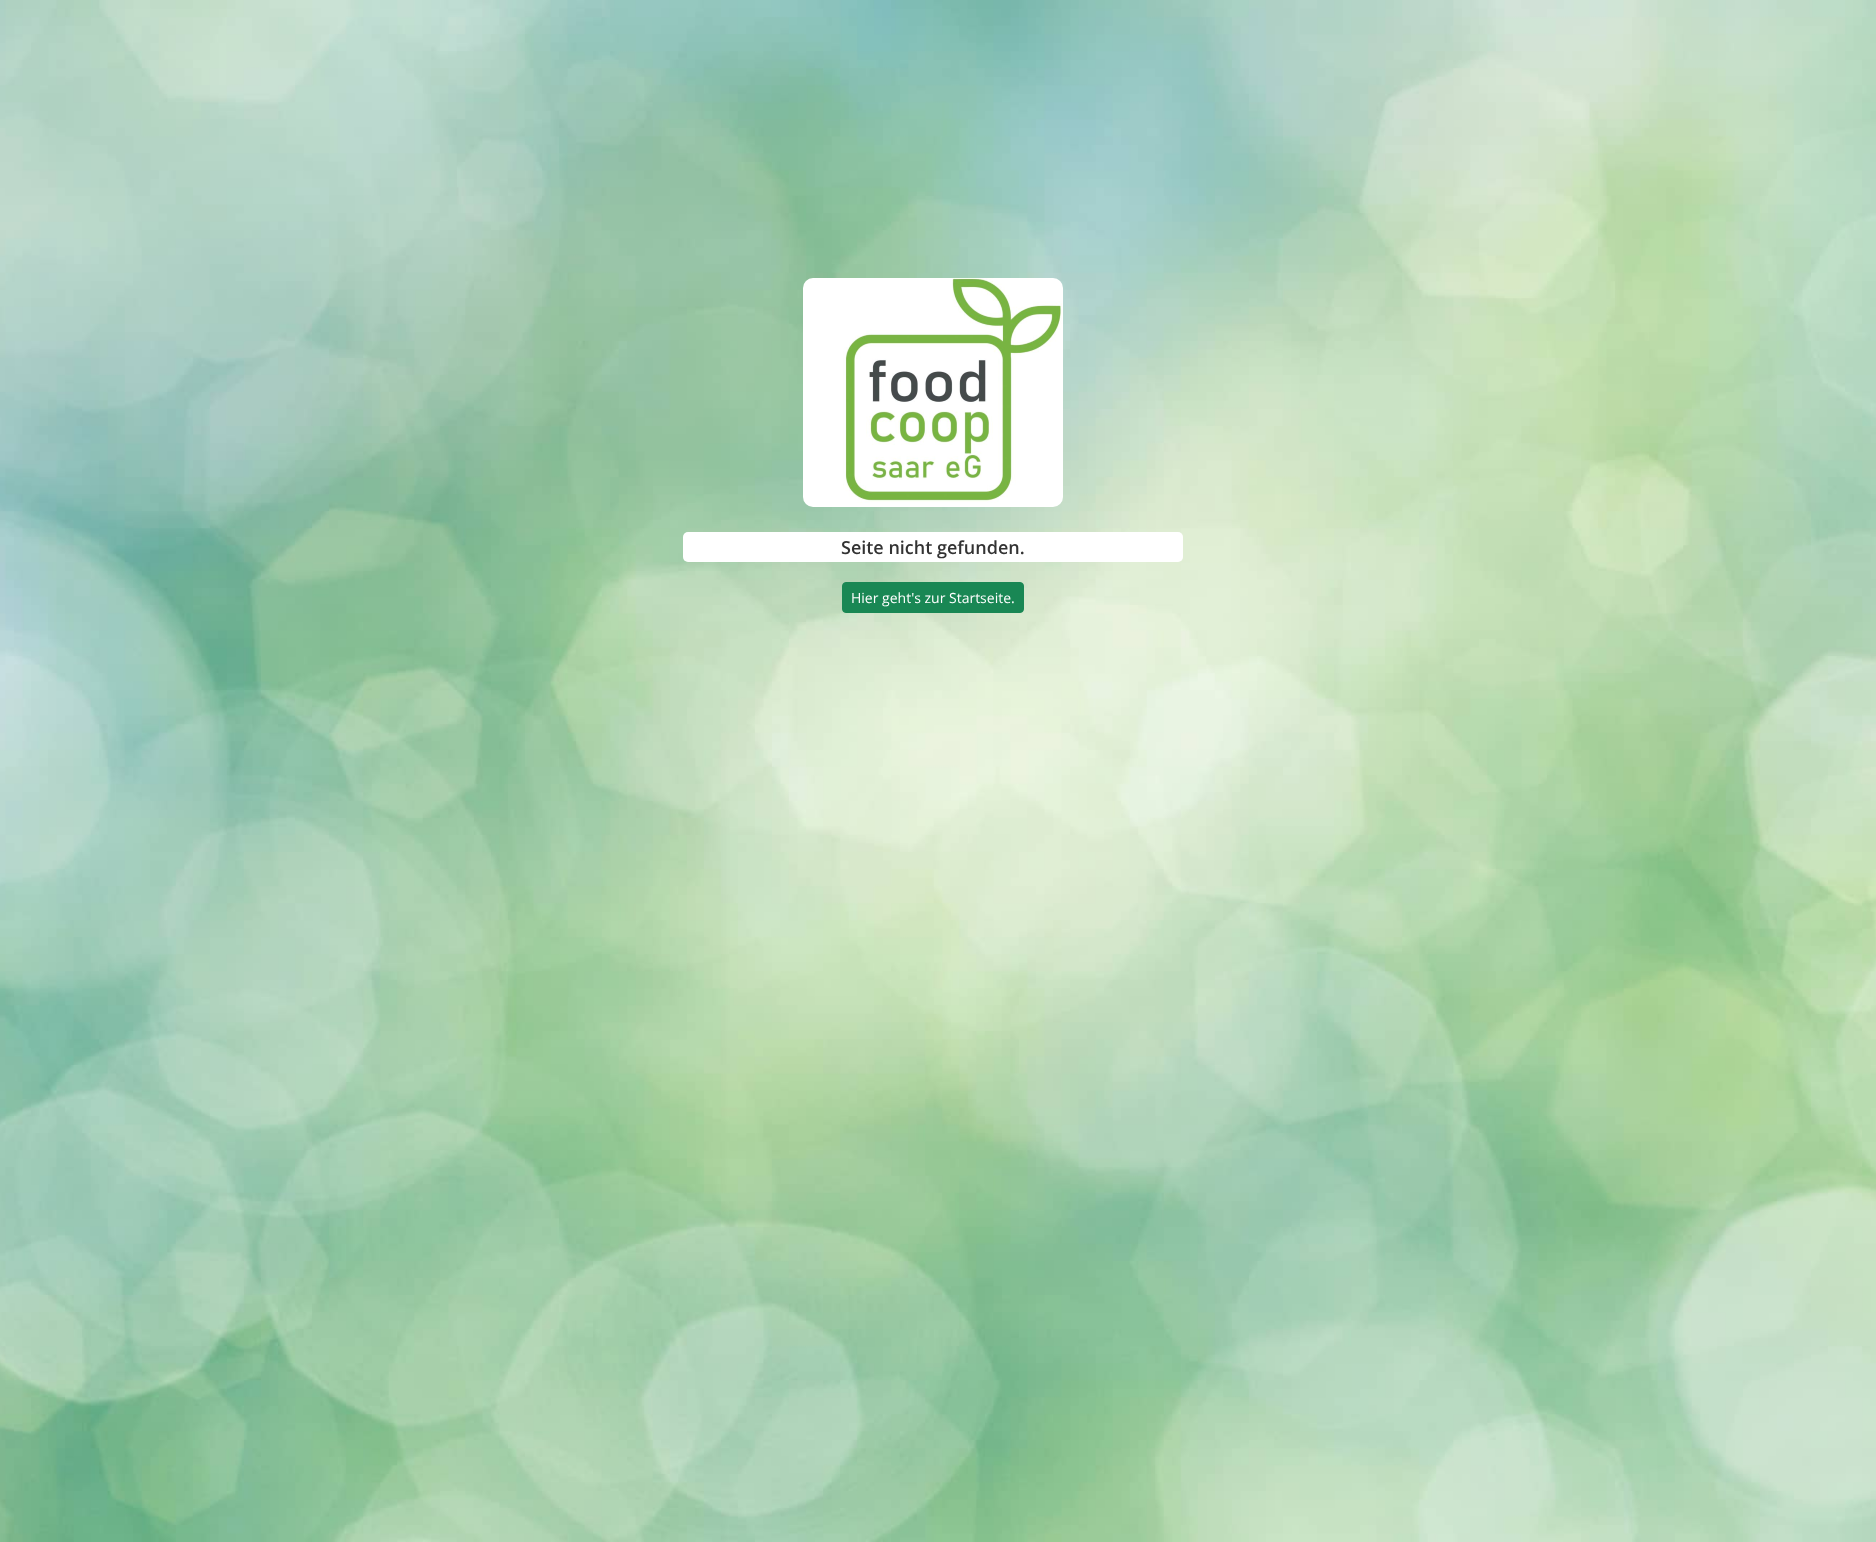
<!DOCTYPE html>
<meta charset="utf-8">
<style>body { margin: 0 } canvas { display: block }</style>
<canvas id="canvas" width="1876" height="1542"></canvas>
<script type="module">
  const canvas = document.getElementById("canvas");
  const ctx = canvas.getContext("2d");
  ctx.miterLimit = 4;
  ctx.fontKerning = "normal";
  async function loadImage(src) {
    const img = new Image();
    img.src = src;
    await img.decode();
    return img;
  }

  ctx.fillStyle = "#ffffff";
  ctx.fillRect(0, 0, 1876, 1542);
  ctx.drawImage(await loadImage("img1.png"), 0, 0, 1876, 1542);
  ctx.drawImage(await loadImage("img2.png"), 803, 278, 260, 229);
  ctx.beginPath();
  ctx.roundRect(683, 532, 500, 30, 5);
  ctx.fill();
  ctx.font = "600 18px Open Sans";
  ctx.fillStyle = "#333333";
  ctx.fillText("Seite nicht gefunden.", 841, 554);
  ctx.fillStyle = "#198754";
  ctx.beginPath();
  ctx.roundRect(842.5, 582.5, 181, 30, 3.5);
  ctx.fill();
  ctx.strokeStyle = "#198754";
  ctx.stroke();
  ctx.font = "14px Open Sans";
  ctx.fillStyle = "#ffffff";
  ctx.fillText("Hier geht's zur Startseite.", 851, 603);
</script>
